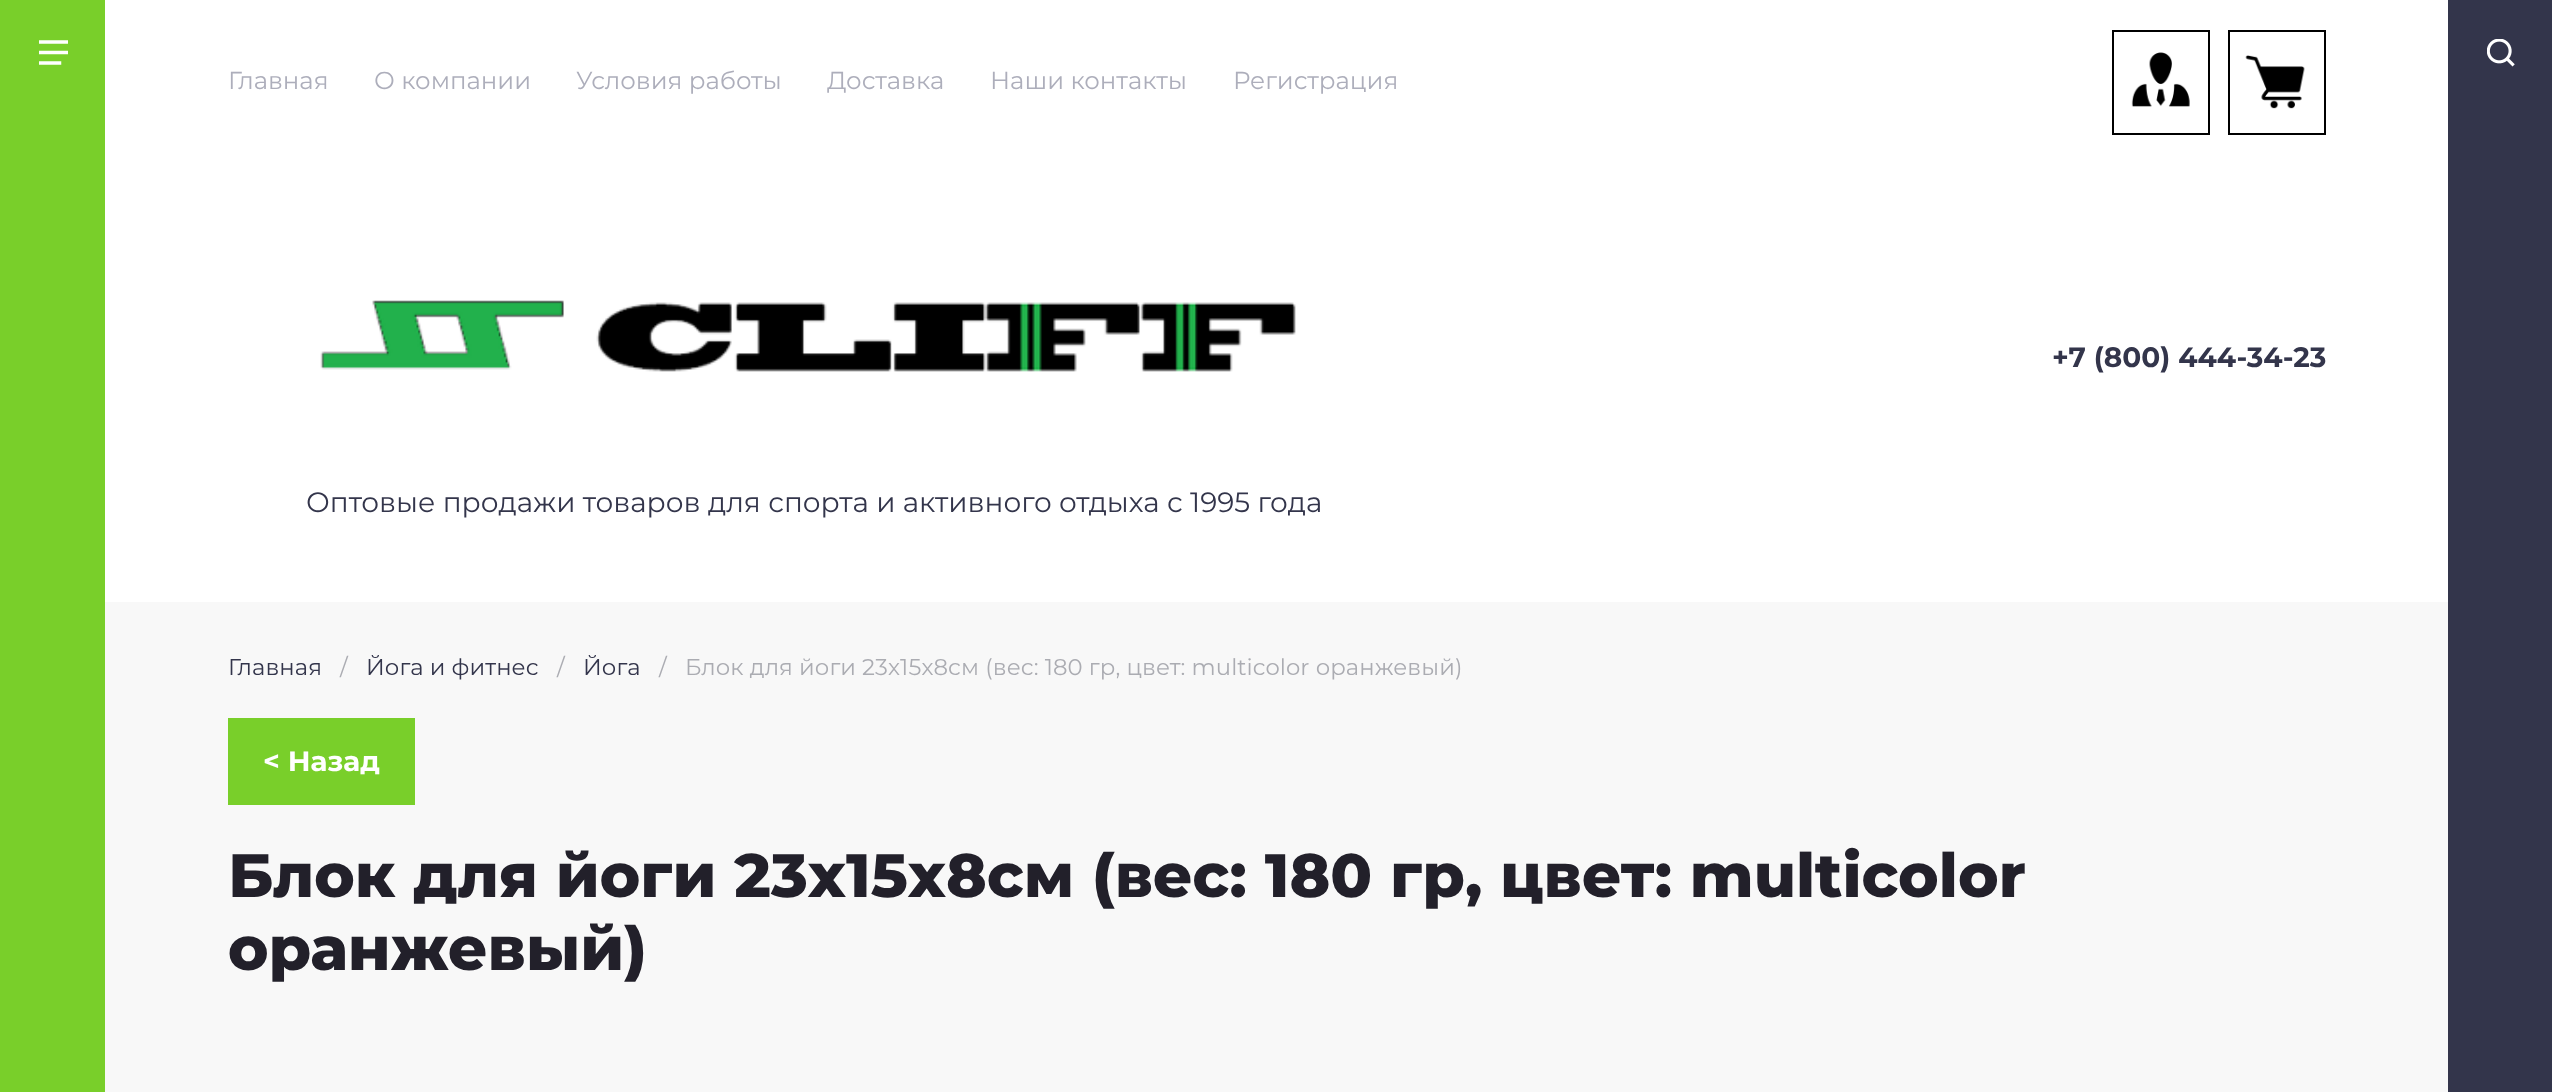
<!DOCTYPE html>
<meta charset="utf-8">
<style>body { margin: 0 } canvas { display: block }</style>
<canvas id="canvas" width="2552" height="1092"></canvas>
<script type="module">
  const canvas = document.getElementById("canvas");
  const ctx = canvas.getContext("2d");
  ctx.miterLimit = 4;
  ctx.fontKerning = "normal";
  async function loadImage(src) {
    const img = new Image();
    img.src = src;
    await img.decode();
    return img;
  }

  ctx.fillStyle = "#f8f8f8";
  ctx.fillRect(0, 0, 2552, 1092);
  ctx.fillStyle = "#79cf2a";
  ctx.fillRect(0, 0, 105, 1092);
  ctx.drawImage(await loadImage("img1.png"), 39, 40, 29, 25);
  ctx.fillStyle = "#33354b";
  ctx.fillRect(2448, 0, 104, 1092);
  ctx.drawImage(await loadImage("img2.png"), 2487, 39, 28, 28);
  ctx.fillStyle = "#ffffff";
  ctx.fillRect(105, 0, 2343, 602);
  ctx.font = "24.5px Montserrat";
  ctx.fillStyle = "#adaebb";
  ctx.fillText("Главная", 228, 89);
  ctx.fillText("О компании", 374, 89);
  ctx.fillText("Условия работы", 576, 89);
  ctx.fillText("Доставка", 827, 89);
  ctx.fillText("Наши контакты", 990, 89);
  ctx.fillText("Регистрация", 1233, 89);
  ctx.strokeStyle = "#000000";
  ctx.lineWidth = 2;
  ctx.strokeRect(2113, 31, 96, 103);
  ctx.drawImage(await loadImage("img3.png"), 2131, 52, 59, 55);
  ctx.strokeRect(2229, 31, 96, 103);
  ctx.drawImage(await loadImage("img4.png"), 2245, 55, 60, 54);
  ctx.font = "bold 28px Montserrat";
  ctx.fillStyle = "#33354b";
  ctx.fillText("+7 (800) 444-34-23", 2052, 367);
  ctx.drawImage(await loadImage("img5.png"), 320, 300, 976, 72);
  ctx.font = "28px Montserrat";
  ctx.fillText("Оптовые продажи товаров для спорта и активного отдыха с 1995 года", 306, 512);
  ctx.letterSpacing = "0.1px";
  ctx.font = "22.75px Montserrat";
  ctx.fillText("Главная", 228, 675);
  ctx.fillStyle = "#abacb2";
  ctx.fillText("/", 340, 675);
  ctx.fillStyle = "#33354b";
  ctx.fillText("Йога и фитнес", 366, 675);
  ctx.fillStyle = "#abacb2";
  ctx.fillText("/", 557, 675);
  ctx.fillStyle = "#33354b";
  ctx.fillText("Йога", 583, 675);
  ctx.fillStyle = "#abacb2";
  ctx.fillText("/", 659, 675);
  ctx.fillText("Блок для йоги 23х15х8см (вес: 180 гр, цвет: multicolor оранжевый)", 685, 675);
  ctx.fillStyle = "#79cf2a";
  ctx.fillRect(228, 718, 187, 87);
  ctx.letterSpacing = "0px";
  ctx.font = "bold 28px Montserrat";
  ctx.fillStyle = "#ffffff";
  ctx.fillText("< Назад", 263, 771);
  ctx.font = "800 61.15px Montserrat";
  ctx.fillStyle = "#22202a";
  ctx.fillText("Блок для йоги 23х15х8см (вес: 180 гр, цвет: multicolor", 228, 897);
  ctx.fillText("оранжевый)", 228, 970);
</script>
